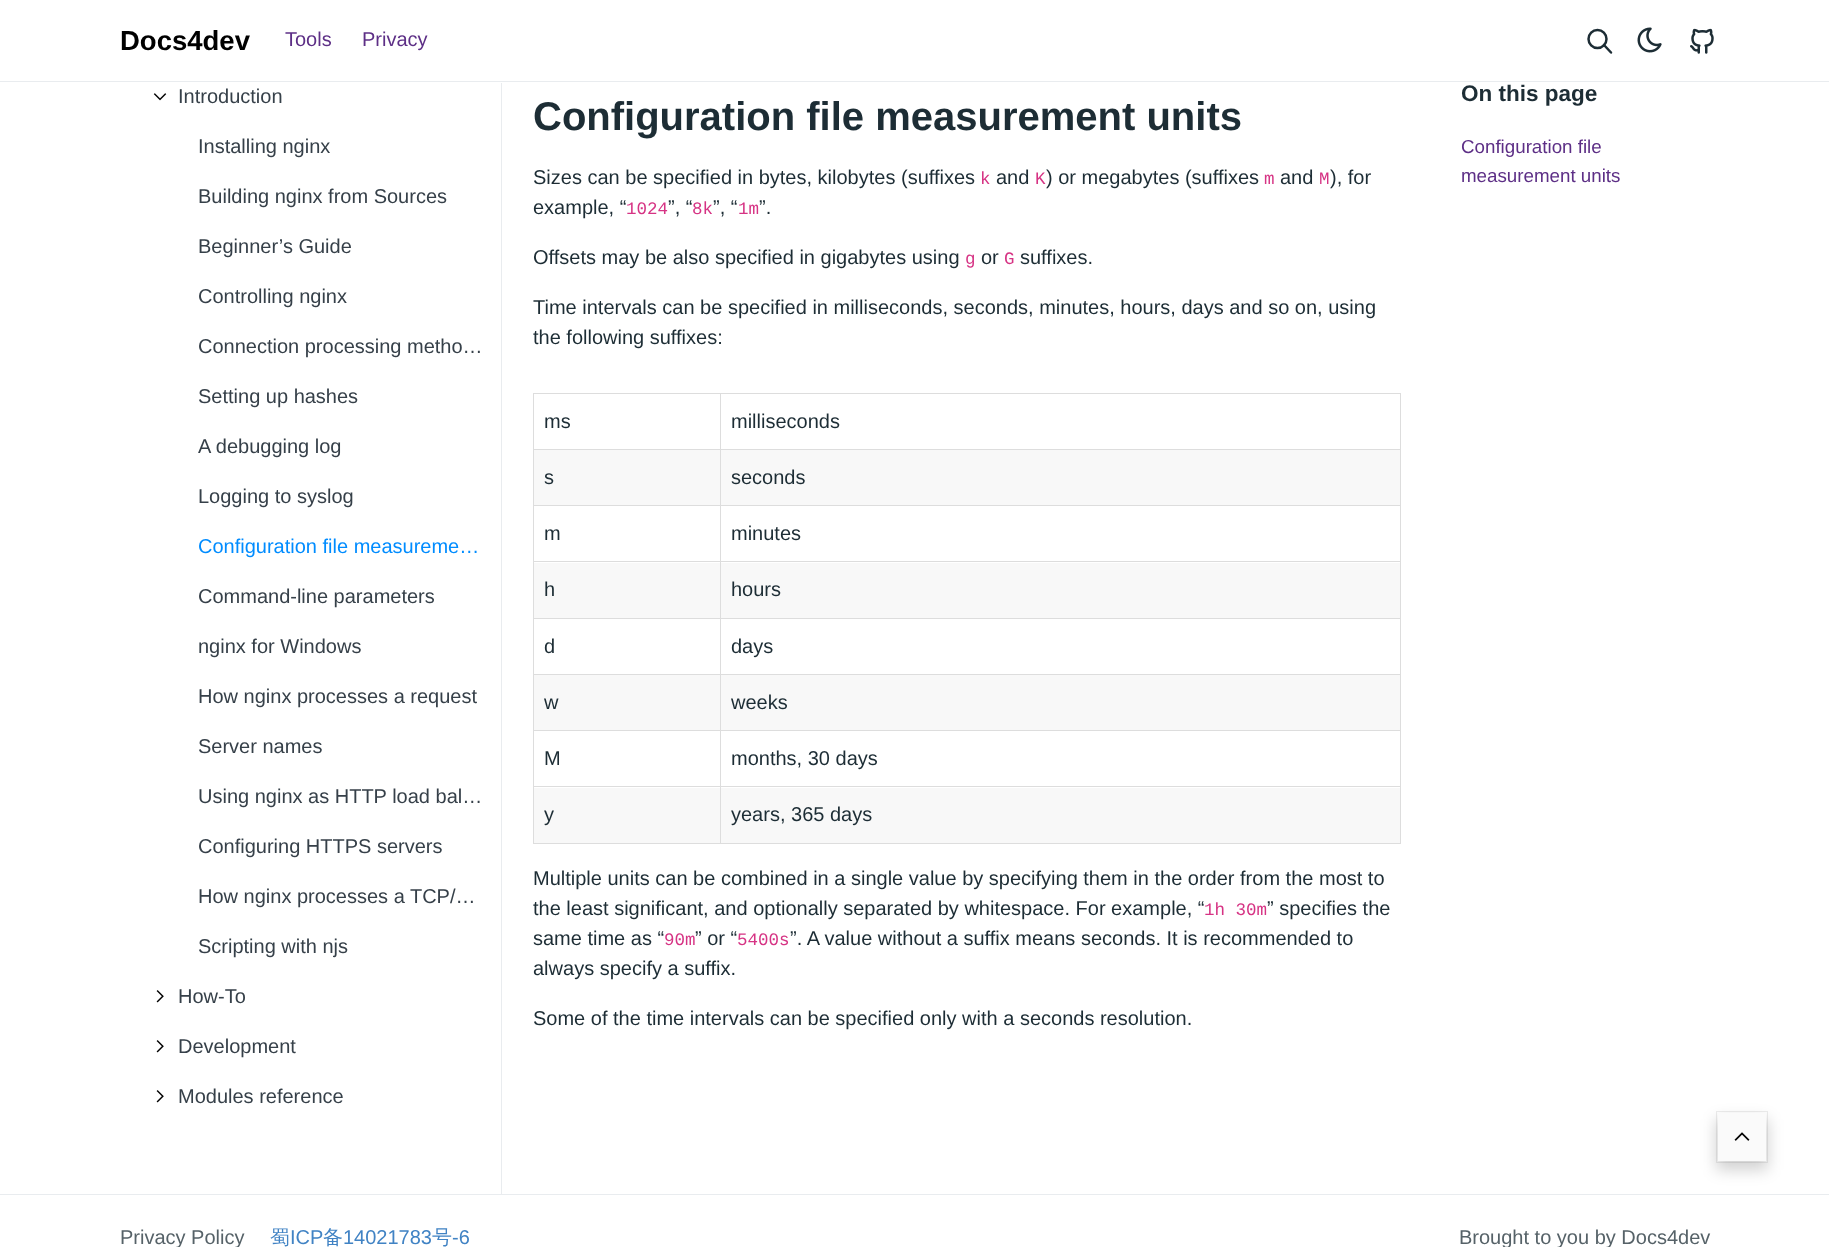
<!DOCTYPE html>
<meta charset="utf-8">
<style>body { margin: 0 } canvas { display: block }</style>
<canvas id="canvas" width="1829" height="1247"></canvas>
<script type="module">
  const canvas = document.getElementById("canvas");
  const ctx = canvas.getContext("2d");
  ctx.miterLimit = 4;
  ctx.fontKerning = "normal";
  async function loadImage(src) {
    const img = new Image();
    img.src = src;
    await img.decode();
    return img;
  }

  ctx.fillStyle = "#ffffff";
  ctx.fillRect(0, 0, 1829, 1247);
  ctx.fillStyle = "#e9ecef";
  ctx.fillRect(0, 81, 1829, 1);
  ctx.font = "bold 27.5px Liberation Sans";
  ctx.fillStyle = "#000000";
  ctx.fillText("Docs4dev", 120, 50);
  ctx.font = "20px Liberation Sans";
  ctx.fillStyle = "#5d2f86";
  ctx.fillText("Tools", 285, 46);
  ctx.fillText("Privacy", 362, 46);
  ctx.beginPath();
  ctx.arc(1597.5, 39, 9, 0, Math.PI * 2);
  ctx.strokeStyle = "#1d2d35";
  ctx.lineWidth = 2.5;
  ctx.stroke();
  ctx.beginPath();
  ctx.moveTo(1611, 52.5);
  ctx.lineTo(1604, 45);
  ctx.lineCap = "round";
  ctx.lineJoin = "round";
  ctx.stroke();
  ctx.drawImage(await loadImage("img1.png"), 1637, 27, 25, 26);
  ctx.drawImage(await loadImage("img2.png"), 1690, 28, 24, 26);
  ctx.fillStyle = "#e9ecef";
  ctx.fillRect(501, 83, 1, 1111);
  ctx.drawImage(await loadImage("img3.png"), 153, 93, 14, 8);
  ctx.fillStyle = "#364049";
  ctx.fillText("Introduction", 178, 103);
  ctx.fillText("Installing nginx", 198, 153);
  ctx.fillText("Building nginx from Sources", 198, 203);
  ctx.fillText("Beginner’s Guide", 198, 253);
  ctx.fillText("Controlling nginx", 198, 303);
  ctx.fillText("Connection processing metho…", 198, 353);
  ctx.fillText("Setting up hashes", 198, 403);
  ctx.fillText("A debugging log", 198, 453);
  ctx.fillText("Logging to syslog", 198, 503);
  ctx.fillStyle = "#008cff";
  ctx.fillText("Configuration file measureme…", 198, 553);
  ctx.fillStyle = "#364049";
  ctx.fillText("Command-line parameters", 198, 603);
  ctx.fillText("nginx for Windows", 198, 653);
  ctx.fillText("How nginx processes a request", 198, 703);
  ctx.fillText("Server names", 198, 753);
  ctx.fillText("Using nginx as HTTP load bal…", 198, 803);
  ctx.fillText("Configuring HTTPS servers", 198, 853);
  ctx.fillText("How nginx processes a TCP/…", 198, 903);
  ctx.fillText("Scripting with njs", 198, 953);
  ctx.drawImage(await loadImage("img4.png"), 156, 990, 8, 13);
  ctx.fillText("How-To", 178, 1003);
  ctx.drawImage(await loadImage("img4.png"), 156, 1040, 8, 13);
  ctx.fillText("Development", 178, 1053);
  ctx.drawImage(await loadImage("img4.png"), 156, 1090, 8, 13);
  ctx.fillText("Modules reference", 178, 1103);
  ctx.font = "bold 40px Liberation Sans";
  ctx.fillStyle = "#1d2d35";
  ctx.fillText("Configuration file measurement units", 533, 130);
  ctx.font = "20px Liberation Sans";
  ctx.fillText("Sizes can be specified in bytes, kilobytes (suffixes", 533, 184);
  ctx.font = "17.5px Liberation Mono";
  ctx.fillStyle = "#d63384";
  ctx.fillText("k", 980, 184);
  ctx.font = "20px Liberation Sans";
  ctx.fillStyle = "#1d2d35";
  ctx.fillText("and", 996, 184);
  ctx.font = "17.5px Liberation Mono";
  ctx.fillStyle = "#d63384";
  ctx.fillText("K", 1035, 184);
  ctx.font = "20px Liberation Sans";
  ctx.fillStyle = "#1d2d35";
  ctx.fillText(") or megabytes (suffixes", 1046, 184);
  ctx.font = "17.5px Liberation Mono";
  ctx.fillStyle = "#d63384";
  ctx.fillText("m", 1264, 184);
  ctx.font = "20px Liberation Sans";
  ctx.fillStyle = "#1d2d35";
  ctx.fillText("and", 1280, 184);
  ctx.font = "17.5px Liberation Mono";
  ctx.fillStyle = "#d63384";
  ctx.fillText("M", 1319, 184);
  ctx.font = "20px Liberation Sans";
  ctx.fillStyle = "#1d2d35";
  ctx.fillText("), for", 1330, 184);
  ctx.fillText("example, “", 533, 214);
  ctx.font = "17.5px Liberation Mono";
  ctx.fillStyle = "#d63384";
  ctx.fillText("1024", 626, 214);
  ctx.font = "20px Liberation Sans";
  ctx.fillStyle = "#1d2d35";
  ctx.fillText("”, “", 668, 214);
  ctx.font = "17.5px Liberation Mono";
  ctx.fillStyle = "#d63384";
  ctx.fillText("8k", 692, 214);
  ctx.font = "20px Liberation Sans";
  ctx.fillStyle = "#1d2d35";
  ctx.fillText("”, “", 713, 214);
  ctx.font = "17.5px Liberation Mono";
  ctx.fillStyle = "#d63384";
  ctx.fillText("1m", 738, 214);
  ctx.font = "20px Liberation Sans";
  ctx.fillStyle = "#1d2d35";
  ctx.fillText("”.", 759, 214);
  ctx.fillText("Offsets may be also specified in gigabytes using", 533, 264);
  ctx.font = "17.5px Liberation Mono";
  ctx.fillStyle = "#d63384";
  ctx.fillText("g", 965, 264);
  ctx.font = "20px Liberation Sans";
  ctx.fillStyle = "#1d2d35";
  ctx.fillText("or", 981, 264);
  ctx.font = "17.5px Liberation Mono";
  ctx.fillStyle = "#d63384";
  ctx.fillText("G", 1004, 264);
  ctx.font = "20px Liberation Sans";
  ctx.fillStyle = "#1d2d35";
  ctx.fillText("suffixes.", 1020, 264);
  ctx.fillText("Time intervals can be specified in milliseconds, seconds, minutes, hours, days and so on, using", 533, 314);
  ctx.fillText("the following suffixes:", 533, 344);
  ctx.fillStyle = "#dddddd";
  ctx.fillRect(720, 393, 681, 1);
  ctx.fillRect(720, 449, 681, 1);
  ctx.fillStyle = "#f8f8f8";
  ctx.fillRect(534, 450, 866, 55);
  ctx.fillStyle = "#dddddd";
  ctx.fillRect(720, 505, 681, 1);
  ctx.fillRect(720, 561, 681, 1);
  ctx.fillStyle = "#f8f8f8";
  ctx.fillRect(534, 563, 866, 55);
  ctx.fillStyle = "#dddddd";
  ctx.fillRect(720, 618, 681, 1);
  ctx.fillRect(720, 674, 681, 1);
  ctx.fillStyle = "#f8f8f8";
  ctx.fillRect(534, 675, 866, 55);
  ctx.fillStyle = "#dddddd";
  ctx.fillRect(720, 730, 681, 1);
  ctx.fillRect(720, 786, 681, 1);
  ctx.fillStyle = "#f8f8f8";
  ctx.fillRect(534, 788, 866, 55);
  ctx.fillStyle = "#dddddd";
  ctx.fillRect(1400, 786, 1, 58);
  ctx.fillRect(720, 843, 681, 1);
  ctx.fillRect(720, 786, 1, 58);
  ctx.fillRect(533, 786, 188, 1);
  ctx.fillRect(720, 730, 1, 58);
  ctx.fillRect(533, 730, 188, 1);
  ctx.fillRect(720, 674, 1, 57);
  ctx.fillRect(533, 674, 188, 1);
  ctx.fillRect(720, 618, 1, 57);
  ctx.fillRect(533, 618, 188, 1);
  ctx.fillRect(720, 561, 1, 58);
  ctx.fillRect(533, 561, 188, 1);
  ctx.fillRect(720, 505, 1, 58);
  ctx.fillRect(533, 505, 188, 1);
  ctx.fillRect(720, 449, 1, 57);
  ctx.fillRect(533, 449, 188, 1);
  ctx.fillRect(720, 393, 1, 57);
  ctx.fillRect(533, 393, 188, 1);
  ctx.fillRect(533, 843, 188, 1);
  ctx.fillRect(533, 786, 1, 58);
  ctx.fillRect(533, 730, 1, 58);
  ctx.fillRect(533, 674, 1, 57);
  ctx.fillRect(533, 618, 1, 57);
  ctx.fillRect(533, 561, 1, 58);
  ctx.fillRect(533, 505, 1, 58);
  ctx.fillRect(533, 449, 1, 57);
  ctx.fillRect(533, 393, 1, 57);
  ctx.fillStyle = "#1d2d35";
  ctx.fillText("ms", 544, 428);
  ctx.fillStyle = "#dddddd";
  ctx.fillRect(1400, 730, 1, 58);
  ctx.fillRect(1400, 674, 1, 57);
  ctx.fillRect(1400, 618, 1, 57);
  ctx.fillRect(1400, 561, 1, 58);
  ctx.fillRect(1400, 505, 1, 58);
  ctx.fillRect(1400, 449, 1, 57);
  ctx.fillRect(1400, 393, 1, 57);
  ctx.fillStyle = "#1d2d35";
  ctx.fillText("milliseconds", 731, 428);
  ctx.fillText("s", 544, 484);
  ctx.fillText("seconds", 731, 484);
  ctx.fillText("m", 544, 540);
  ctx.fillText("minutes", 731, 540);
  ctx.fillText("h", 544, 596);
  ctx.fillText("hours", 731, 596);
  ctx.fillText("d", 544, 653);
  ctx.fillText("days", 731, 653);
  ctx.fillText("w", 544, 709);
  ctx.fillText("weeks", 731, 709);
  ctx.fillText("M", 544, 765);
  ctx.fillText("months, 30 days", 731, 765);
  ctx.fillText("y", 544, 821);
  ctx.fillText("years, 365 days", 731, 821);
  ctx.fillText("Multiple units can be combined in a single value by specifying them in the order from the most to", 533, 885);
  ctx.fillText("the least significant, and optionally separated by whitespace. For example, “", 533, 915);
  ctx.font = "17.5px Liberation Mono";
  ctx.fillStyle = "#d63384";
  ctx.fillText("1h 30m", 1204, 915);
  ctx.font = "20px Liberation Sans";
  ctx.fillStyle = "#1d2d35";
  ctx.fillText("” specifies the", 1267, 915);
  ctx.fillText("same time as “", 533, 945);
  ctx.font = "17.5px Liberation Mono";
  ctx.fillStyle = "#d63384";
  ctx.fillText("90m", 664, 945);
  ctx.font = "20px Liberation Sans";
  ctx.fillStyle = "#1d2d35";
  ctx.fillText("” or “", 695, 945);
  ctx.font = "17.5px Liberation Mono";
  ctx.fillStyle = "#d63384";
  ctx.fillText("5400s", 737, 945);
  ctx.font = "20px Liberation Sans";
  ctx.fillStyle = "#1d2d35";
  ctx.fillText("”. A value without a suffix means seconds. It is recommended to", 790, 945);
  ctx.fillText("always specify a suffix.", 533, 975);
  ctx.fillText("Some of the time intervals can be specified only with a seconds resolution.", 533, 1025);
  ctx.font = "bold 22.5px Liberation Sans";
  ctx.fillText("On this page", 1461, 101);
  ctx.font = "18.75px Liberation Sans";
  ctx.fillStyle = "#5d2f86";
  ctx.fillText("Configuration file", 1461, 153);
  ctx.fillText("measurement units", 1461, 182);
  ctx.fillStyle = "rgba(0, 0, 0, 0.18)";
  ctx.filter = "blur(7.5px)";
  ctx.beginPath();
  ctx.roundRect(1716, 1119, 52, 51, 1);
  ctx.fill();
  ctx.filter = "none";
  ctx.fillStyle = "#fafafa";
  ctx.fillRect(1718, 1113, 48, 48);
  ctx.strokeStyle = "rgba(0, 0, 0, 0.07)";
  ctx.lineWidth = 1;
  ctx.lineJoin = "miter";
  ctx.strokeRect(1716.5, 1111.5, 51, 51);
  ctx.drawImage(await loadImage("img5.png"), 1734, 1132, 16, 9);
  ctx.fillStyle = "#e9ecef";
  ctx.fillRect(0, 1194, 1829, 1);
  ctx.font = "20px Liberation Sans";
  ctx.fillStyle = "#566268";
  ctx.fillText("Privacy Policy", 120, 1244);
  ctx.font = "500 20px WenQuanYi Zen Hei";
  ctx.fillStyle = "#4183c4";
  ctx.fillText("蜀", 270, 1244);
  ctx.font = "20px Liberation Sans";
  ctx.fillText("ICP", 290, 1244);
  ctx.font = "500 20px WenQuanYi Zen Hei";
  ctx.fillText("备", 323, 1244);
  ctx.font = "20px Liberation Sans";
  ctx.fillText("14021783", 343, 1244);
  ctx.font = "500 20px WenQuanYi Zen Hei";
  ctx.fillText("号", 432, 1244);
  ctx.font = "20px Liberation Sans";
  ctx.fillText("-6", 452, 1244);
  ctx.fillStyle = "#566268";
  ctx.fillText("Brought to you by Docs4dev", 1459, 1244);
</script>
